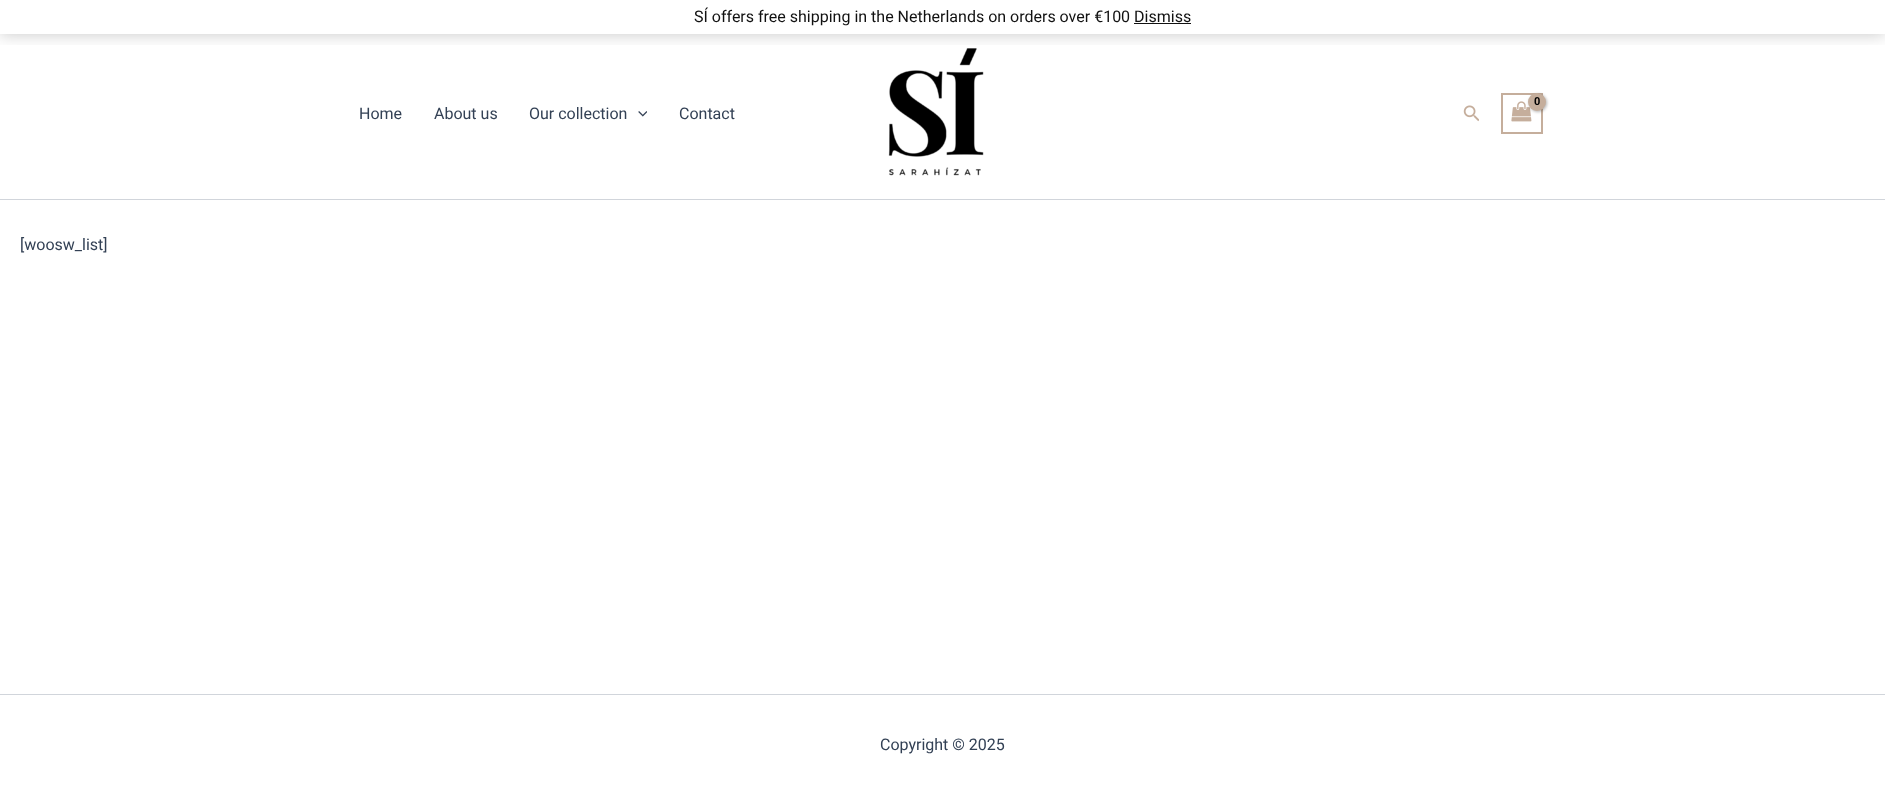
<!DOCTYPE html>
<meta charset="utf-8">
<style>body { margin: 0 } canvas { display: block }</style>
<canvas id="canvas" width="1885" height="795"></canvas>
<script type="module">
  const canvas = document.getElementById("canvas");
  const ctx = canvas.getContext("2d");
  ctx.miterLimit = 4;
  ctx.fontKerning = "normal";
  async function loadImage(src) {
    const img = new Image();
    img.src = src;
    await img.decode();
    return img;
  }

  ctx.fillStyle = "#ffffff";
  ctx.fillRect(0, 0, 1885, 795);
  ctx.drawImage(await loadImage("img1.png"), 888, 48, 96, 128);
  ctx.save();
  ctx.beginPath();
  ctx.rect(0, 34, 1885, 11);
  ctx.clip();
  ctx.fillStyle = "rgba(0, 0, 0, 0.2)";
  ctx.filter = "blur(8px)";
  ctx.beginPath();
  ctx.rect(0, 1, 1885, 34);
  ctx.fill();
  ctx.filter = "none";
  ctx.restore();
  ctx.font = "16px Roboto";
  ctx.fillStyle = "#111111";
  ctx.fillText("SÍ offers free shipping in the Netherlands on orders over €100 Dismiss", 694, 22);
  ctx.fillRect(1134, 23, 57, 1);
  ctx.fillStyle = "#d1d5db";
  ctx.fillRect(0, 199, 1885, 1);
  ctx.strokeStyle = "#c5ae9c";
  ctx.lineWidth = 2;
  ctx.strokeRect(1502, 94, 40, 39);
  ctx.drawImage(await loadImage("img2.png"), 1511, 101, 21, 21);
  ctx.fillStyle = "rgba(0, 0, 0, 0.3)";
  ctx.filter = "blur(1.5px)";
  ctx.beginPath();
  ctx.roundRect(1529, 94, 18, 18, 9);
  ctx.fill();
  ctx.filter = "none";
  ctx.fillStyle = "#c5ae9c";
  ctx.beginPath();
  ctx.arc(1537, 102, 9, 0, Math.PI * 2);
  ctx.fill();
  ctx.font = "bold 11px Roboto";
  ctx.fillStyle = "#000000";
  ctx.fillText("0", 1534, 105);
  ctx.drawImage(await loadImage("img3.png"), 1463, 105, 16, 17);
  ctx.font = "16px Roboto";
  ctx.fillStyle = "#334155";
  ctx.fillText("Home", 359, 119);
  ctx.fillText("About us", 434, 119);
  ctx.fillText("Our collection", 529, 119);
  ctx.drawImage(await loadImage("img4.png"), 638, 111, 9, 6);
  ctx.fillText("Contact", 679, 119);
  ctx.fillText("[woosw_list]", 20, 250);
  ctx.fillStyle = "#d1d5db";
  ctx.fillRect(0, 694, 1885, 1);
  ctx.fillStyle = "#334155";
  ctx.fillText("Copyright © 2025", 880, 750);
</script>
